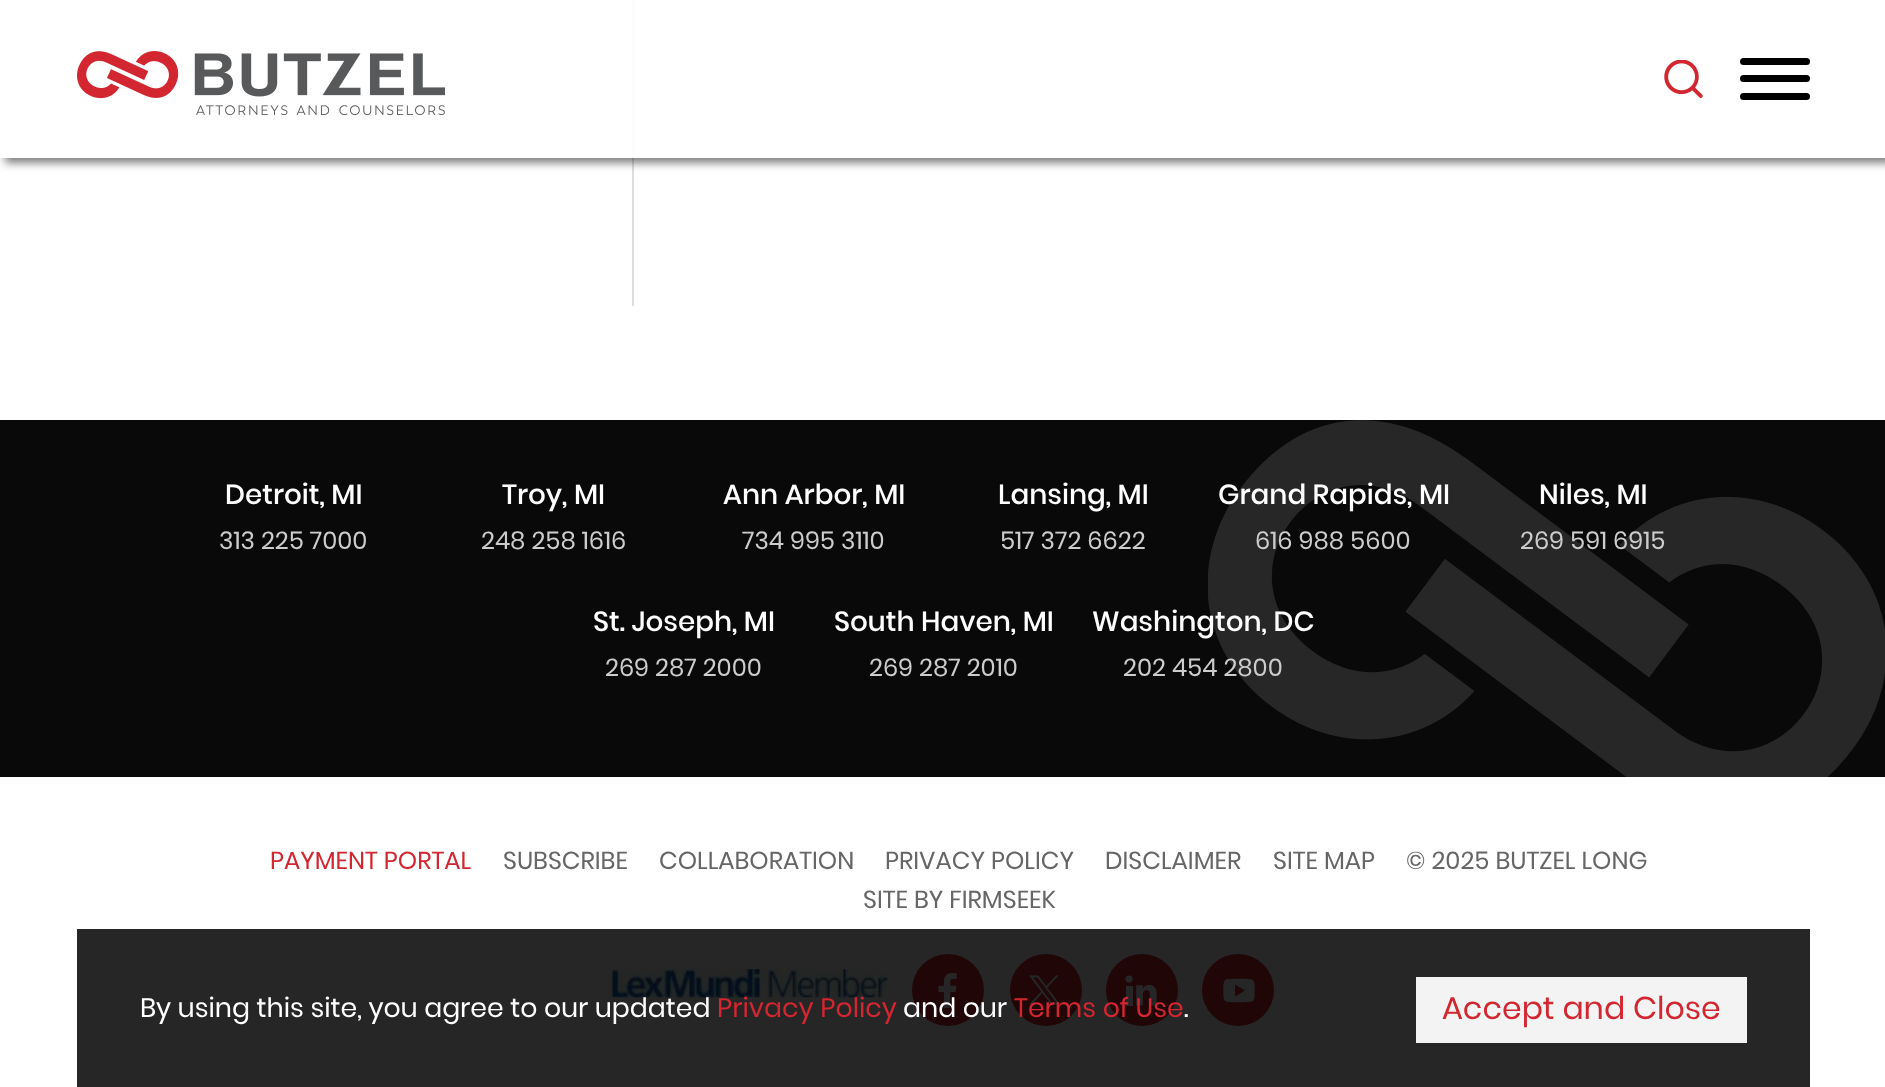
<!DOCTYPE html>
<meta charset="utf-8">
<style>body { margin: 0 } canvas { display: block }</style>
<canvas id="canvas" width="1885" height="1087"></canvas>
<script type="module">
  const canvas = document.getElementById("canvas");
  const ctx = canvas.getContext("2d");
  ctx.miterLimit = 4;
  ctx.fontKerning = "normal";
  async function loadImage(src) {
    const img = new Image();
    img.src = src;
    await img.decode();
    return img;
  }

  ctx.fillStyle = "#ffffff";
  ctx.fillRect(0, 0, 1885, 1087);
  ctx.fillStyle = "#dddddd";
  ctx.fillRect(632, 0, 2, 306);
  ctx.save();
  ctx.beginPath();
  ctx.moveTo(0, 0);
  ctx.lineTo(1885, 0);
  ctx.lineTo(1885, 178);
  ctx.lineTo(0, 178);
  ctx.closePath();
  ctx.moveTo(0, 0);
  ctx.lineTo(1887, 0);
  ctx.lineTo(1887, 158);
  ctx.lineTo(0, 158);
  ctx.closePath();
  ctx.clip("evenodd");
  ctx.fillStyle = "rgba(0, 0, 0, 0.5)";
  ctx.filter = "blur(4.5px)";
  ctx.beginPath();
  ctx.rect(5, 5, 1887, 158);
  ctx.fill();
  ctx.filter = "none";
  ctx.restore();
  ctx.fillStyle = "rgba(255, 255, 255, 0.9)";
  ctx.fillRect(0, 0, 1885, 158);
  ctx.drawImage(await loadImage("img1.png"), 77, 51, 368, 65);
  ctx.drawImage(await loadImage("img2.png"), 1664, 60, 39, 38);
  ctx.fillStyle = "#000000";
  ctx.beginPath();
  ctx.roundRect(1740, 58, 70, 7, 3.5);
  ctx.fill();
  ctx.beginPath();
  ctx.roundRect(1740, 75, 70, 7, 3.5);
  ctx.fill();
  ctx.beginPath();
  ctx.roundRect(1740, 93, 70, 7, 3.5);
  ctx.fill();
  ctx.fillStyle = "#090909";
  ctx.fillRect(0, 420, 1885, 357);
  ctx.drawImage(await loadImage("img3.png"), 1208, 420, 677, 357);
  ctx.font = "500 27.75px Poppins";
  ctx.fillStyle = "#ffffff";
  ctx.fillText("Detroit, MI", 225, 504);
  ctx.font = "24.5px Poppins";
  ctx.fillStyle = "#cccccc";
  ctx.fillText("313 225 7000", 219, 549);
  ctx.font = "500 27.75px Poppins";
  ctx.fillStyle = "#ffffff";
  ctx.fillText("Troy, MI", 502, 504);
  ctx.font = "24.5px Poppins";
  ctx.fillStyle = "#cccccc";
  ctx.fillText("248 258 1616", 481, 549);
  ctx.font = "500 27.75px Poppins";
  ctx.fillStyle = "#ffffff";
  ctx.fillText("Ann Arbor, MI", 723, 504);
  ctx.font = "24.5px Poppins";
  ctx.fillStyle = "#cccccc";
  ctx.fillText("734 995 3110", 742, 549);
  ctx.font = "500 27.75px Poppins";
  ctx.fillStyle = "#ffffff";
  ctx.fillText("Lansing, MI", 998, 504);
  ctx.font = "24.5px Poppins";
  ctx.fillStyle = "#cccccc";
  ctx.fillText("517 372 6622", 1000, 549);
  ctx.font = "500 27.75px Poppins";
  ctx.fillStyle = "#ffffff";
  ctx.fillText("Grand Rapids, MI", 1218, 504);
  ctx.font = "24.5px Poppins";
  ctx.fillStyle = "#cccccc";
  ctx.fillText("616 988 5600", 1255, 549);
  ctx.font = "500 27.75px Poppins";
  ctx.fillStyle = "#ffffff";
  ctx.fillText("Niles, MI", 1539, 504);
  ctx.font = "24.5px Poppins";
  ctx.fillStyle = "#cccccc";
  ctx.fillText("269 591 6915", 1520, 549);
  ctx.font = "500 27.75px Poppins";
  ctx.fillStyle = "#ffffff";
  ctx.fillText("St. Joseph, MI", 593, 631);
  ctx.font = "24.5px Poppins";
  ctx.fillStyle = "#cccccc";
  ctx.fillText("269 287 2000", 605, 676);
  ctx.font = "500 27.75px Poppins";
  ctx.fillStyle = "#ffffff";
  ctx.fillText("South Haven, MI", 834, 631);
  ctx.font = "24.5px Poppins";
  ctx.fillStyle = "#cccccc";
  ctx.fillText("269 287 2010", 869, 676);
  ctx.font = "500 27.75px Poppins";
  ctx.fillStyle = "#ffffff";
  ctx.fillText("Washington, DC", 1092, 631);
  ctx.font = "24.5px Poppins";
  ctx.fillStyle = "#cccccc";
  ctx.fillText("202 454 2800", 1123, 676);
  ctx.fillStyle = "#d22630";
  ctx.fillText("PAYMENT PORTAL", 270, 869);
  ctx.fillStyle = "#666666";
  ctx.fillText("SUBSCRIBE", 503, 869);
  ctx.fillText("COLLABORATION", 659, 869);
  ctx.fillText("PRIVACY POLICY", 885, 869);
  ctx.fillText("DISCLAIMER", 1105, 869);
  ctx.fillText("SITE MAP", 1273, 869);
  ctx.fillText("© 2025 BUTZEL LONG", 1406, 869);
  ctx.fillText("SITE BY FIRMSEEK", 863, 908);
  ctx.fillStyle = "#262626";
  ctx.fillRect(77, 929, 1733, 158);
  ctx.drawImage(await loadImage("img4.png"), 612, 969, 276, 29);
  ctx.fillStyle = "#200607";
  ctx.beginPath();
  ctx.arc(948, 990, 36, 0, Math.PI * 2);
  ctx.fill();
  ctx.drawImage(await loadImage("img5.png"), 938, 973, 19, 35);
  ctx.beginPath();
  ctx.arc(1046, 990, 36, 0, Math.PI * 2);
  ctx.fill();
  ctx.drawImage(await loadImage("img6.png"), 1029, 975, 32, 30);
  ctx.beginPath();
  ctx.arc(1142, 990, 36, 0, Math.PI * 2);
  ctx.fill();
  ctx.drawImage(await loadImage("img7.png"), 1125, 975, 32, 31);
  ctx.beginPath();
  ctx.arc(1238, 990, 36, 0, Math.PI * 2);
  ctx.fill();
  ctx.drawImage(await loadImage("img8.png"), 1223, 978, 32, 25);
  ctx.font = "26.7px Poppins";
  ctx.fillStyle = "#ffffff";
  ctx.fillText("By using this site, you agree to our updated", 140, 1017);
  ctx.fillStyle = "#d22630";
  ctx.fillText("Privacy Policy", 717, 1017);
  ctx.fillStyle = "#ffffff";
  ctx.fillText("and our", 903, 1017);
  ctx.fillStyle = "#d22630";
  ctx.fillText("Terms of Use", 1014, 1017);
  ctx.fillStyle = "#ffffff";
  ctx.fillText(".", 1184, 1017);
  ctx.fillStyle = "#f3f3f3";
  ctx.fillRect(1416, 977, 331, 66);
  ctx.font = "31.5px Poppins";
  ctx.fillStyle = "#d22630";
  ctx.fillText("Accept and Close", 1442, 1019);
</script>
